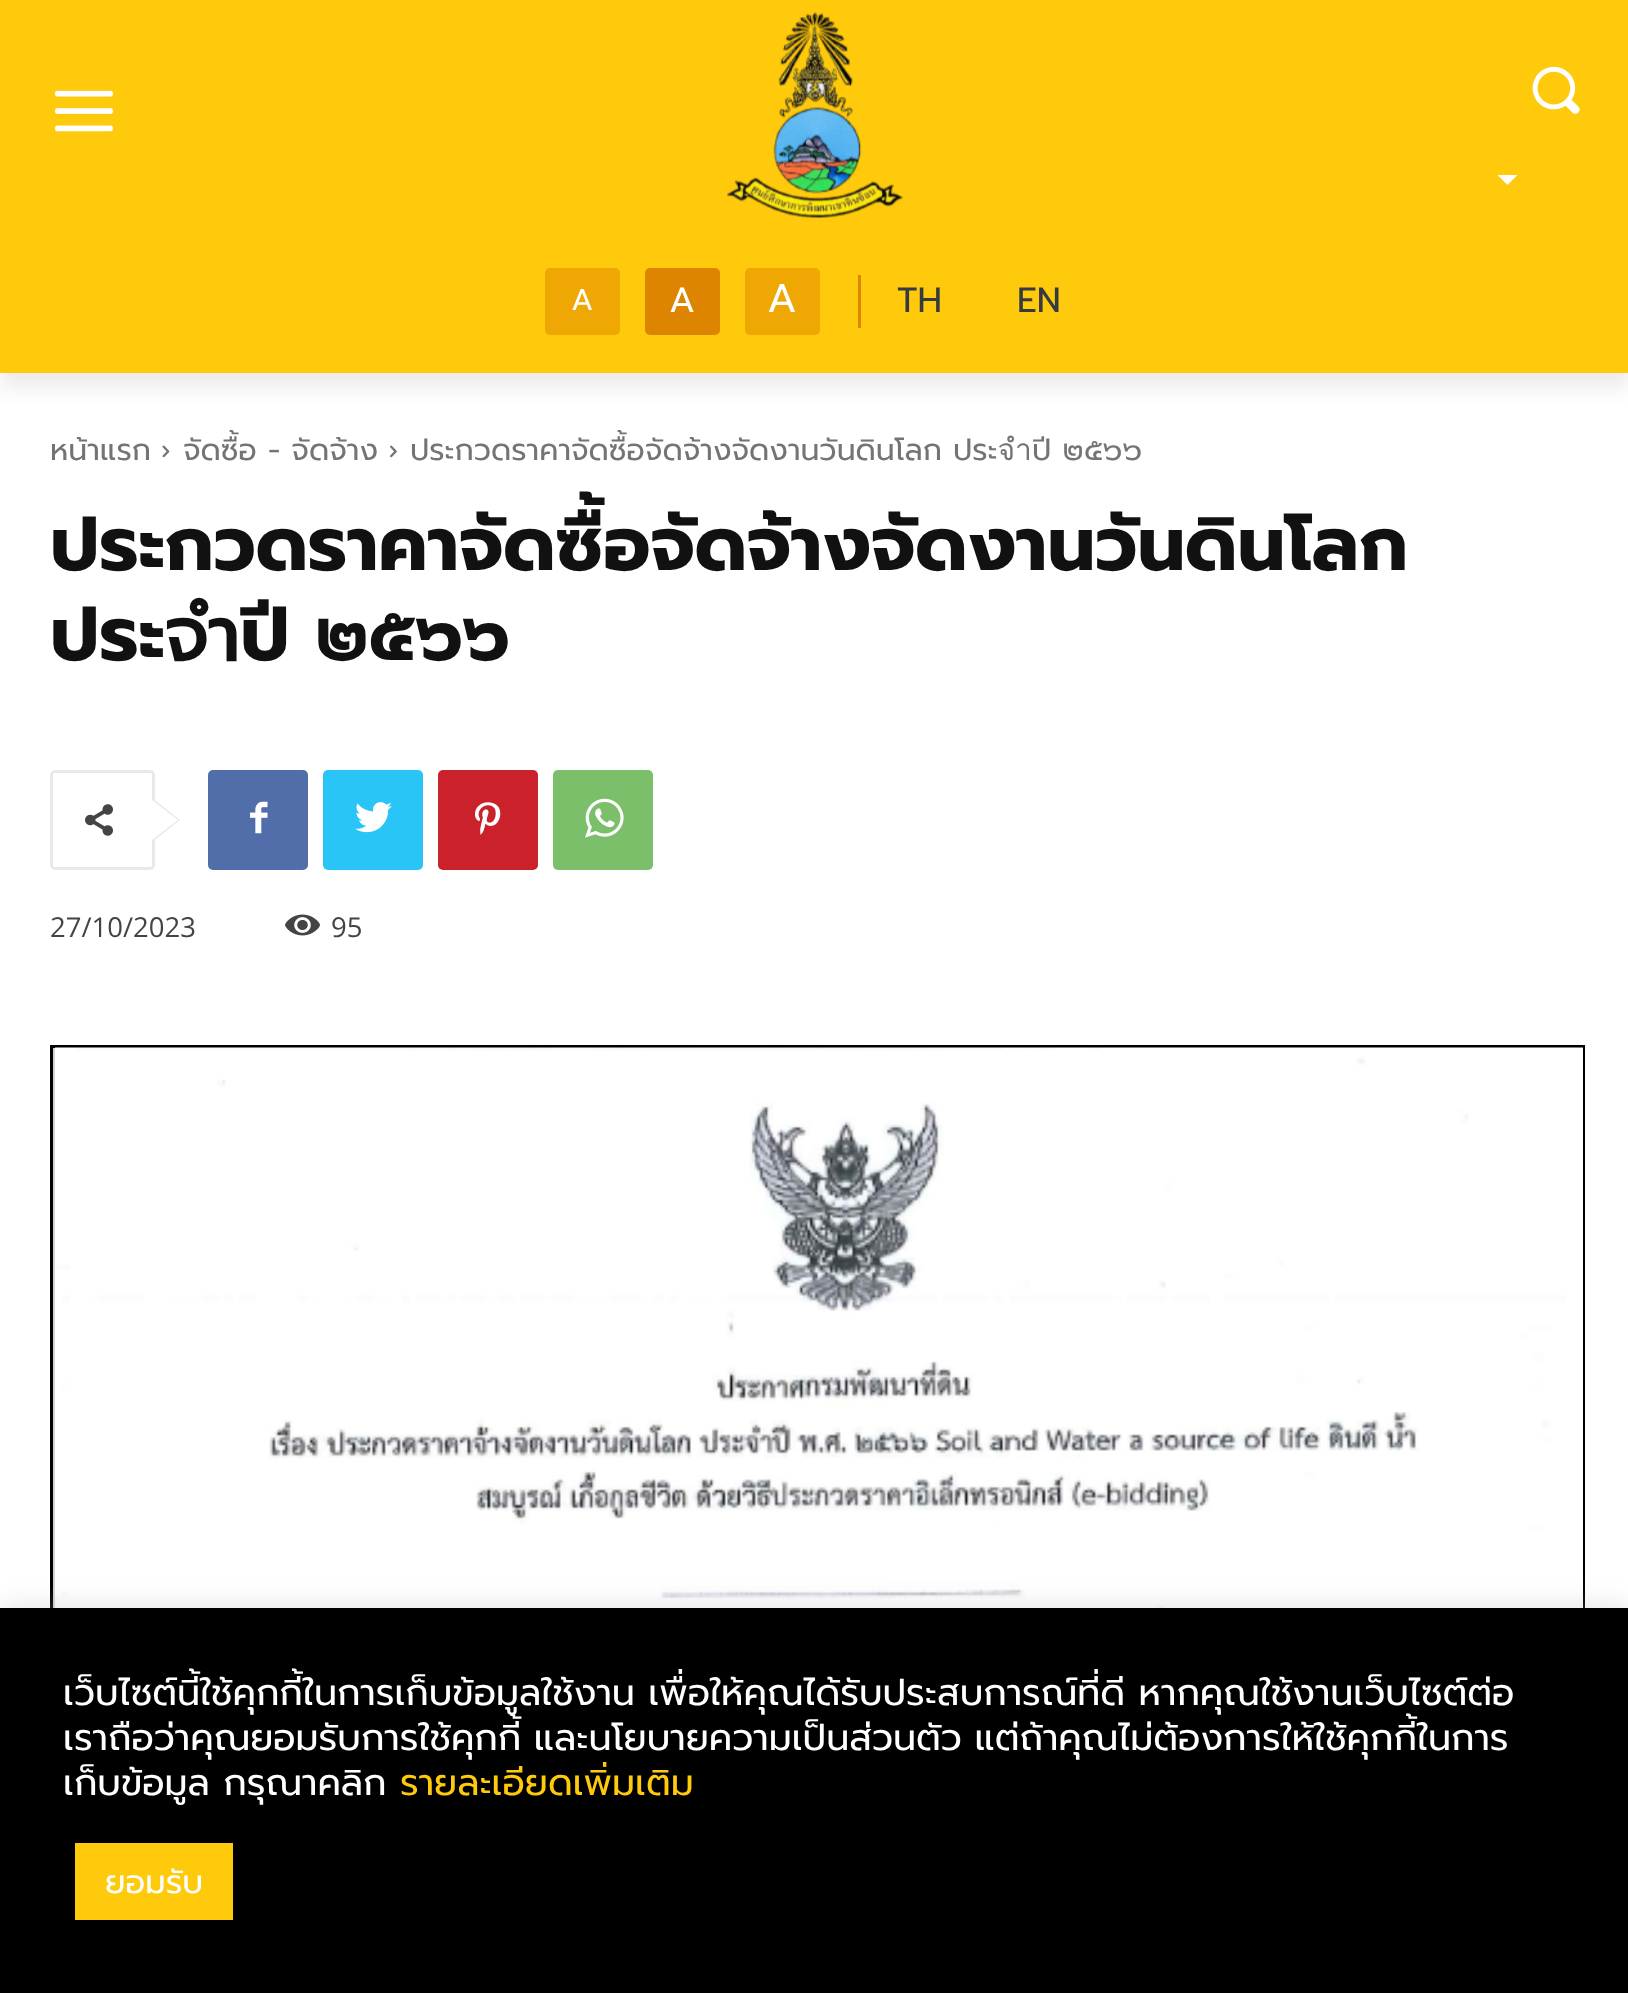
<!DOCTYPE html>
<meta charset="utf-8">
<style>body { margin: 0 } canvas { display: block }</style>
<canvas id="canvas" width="1628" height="1993"></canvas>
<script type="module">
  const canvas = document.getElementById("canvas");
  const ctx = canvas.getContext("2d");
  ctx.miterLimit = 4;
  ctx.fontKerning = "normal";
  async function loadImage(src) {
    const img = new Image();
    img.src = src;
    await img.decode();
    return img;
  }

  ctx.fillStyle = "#ffffff";
  ctx.fillRect(0, 0, 1628, 1993);
  ctx.fillStyle = "#ffc90c";
  ctx.fillRect(0, 0, 1628, 373);
  ctx.drawImage(await loadImage("img1.png"), 55, 90, 58, 42);
  ctx.drawImage(await loadImage("img2.png"), 727, 12, 176, 206);
  ctx.drawImage(await loadImage("img3.png"), 1532, 66, 48, 48);
  ctx.fillStyle = "#ffffff";
  ctx.beginPath();
  ctx.moveTo(1497.5, 175);
  ctx.lineTo(1517.5, 175);
  ctx.lineTo(1507.5, 185);
  ctx.closePath();
  ctx.fill();
  ctx.fillStyle = "#eea703";
  ctx.beginPath();
  ctx.roundRect(545, 268, 75, 67, 5);
  ctx.fill();
  ctx.fillStyle = "#dd8500";
  ctx.beginPath();
  ctx.roundRect(645, 268, 75, 67, 5);
  ctx.fill();
  ctx.fillStyle = "#eea703";
  ctx.beginPath();
  ctx.roundRect(745, 268, 75, 67, 5);
  ctx.fill();
  ctx.fillStyle = "#dd8500";
  ctx.fillRect(858, 275, 3, 53);
  ctx.save();
  ctx.beginPath();
  ctx.moveTo(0, 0);
  ctx.lineTo(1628, 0);
  ctx.lineTo(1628, 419);
  ctx.lineTo(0, 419);
  ctx.closePath();
  ctx.moveTo(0, 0);
  ctx.lineTo(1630, 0);
  ctx.lineTo(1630, 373);
  ctx.lineTo(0, 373);
  ctx.closePath();
  ctx.clip("evenodd");
  ctx.fillStyle = "rgba(0, 0, 0, 0.08)";
  ctx.filter = "blur(10px)";
  ctx.beginPath();
  ctx.rect(0, 15, 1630, 373);
  ctx.fill();
  ctx.filter = "none";
  ctx.restore();
  ctx.font = "30px Prompt";
  ctx.fillStyle = "#ffffff";
  ctx.fillText("A", 571, 310);
  ctx.font = "35px Prompt";
  ctx.fillText("A", 669, 312);
  ctx.font = "40px Prompt";
  ctx.fillText("A", 767, 312);
  ctx.font = "35px Prompt";
  ctx.fillStyle = "#343a40";
  ctx.fillText("TH", 897, 312);
  ctx.fillText("EN", 1017, 312);
  ctx.font = "30px Prompt";
  ctx.fillStyle = "#747474";
  ctx.fillText("หน้าแรก", 50, 460);
  ctx.drawImage(await loadImage("img4.png"), 162, 445, 8, 13);
  ctx.fillText("จัดซื้อ - จัดจ้าง", 183, 460);
  ctx.drawImage(await loadImage("img5.png"), 390, 445, 7, 13);
  ctx.fillText("ประกวดราคาจัดซื้อจัดจ้างจัดงานวันดินโลก ประจำปี ๒๕๖๖", 410, 460);
  ctx.font = "bold 75px Prompt";
  ctx.fillStyle = "#111111";
  ctx.fillText("ประกวดราคาจัดซื้อจัดจ้างจัดงานวันดินโลก", 50, 570);
  ctx.fillText("ประจำปี ๒๕๖๖", 50, 660);
  ctx.beginPath();
  ctx.roundRect(51.5, 771.5, 102, 97, 3.5);
  ctx.strokeStyle = "#e9e9e9";
  ctx.lineWidth = 3;
  ctx.stroke();
  ctx.fillStyle = "#e9e9e9";
  ctx.beginPath();
  ctx.moveTo(152, 842);
  ctx.lineTo(152, 798);
  ctx.lineTo(180, 820);
  ctx.closePath();
  ctx.fill();
  ctx.drawImage(await loadImage("img6.png"), 85, 804, 28, 32);
  ctx.fillStyle = "#ffffff";
  ctx.beginPath();
  ctx.moveTo(152, 840);
  ctx.lineTo(152, 800);
  ctx.lineTo(178, 820);
  ctx.closePath();
  ctx.fill();
  ctx.fillStyle = "#516eab";
  ctx.beginPath();
  ctx.roundRect(208, 770, 100, 100, 5);
  ctx.fill();
  ctx.drawImage(await loadImage("img7.png"), 250, 801, 18, 33);
  ctx.fillStyle = "#29c5f6";
  ctx.beginPath();
  ctx.roundRect(323, 770, 100, 100, 5);
  ctx.fill();
  ctx.drawImage(await loadImage("img8.png"), 355, 802, 37, 31);
  ctx.fillStyle = "#ca212a";
  ctx.beginPath();
  ctx.roundRect(438, 770, 100, 100, 5);
  ctx.fill();
  ctx.drawImage(await loadImage("img9.png"), 475, 802, 26, 33);
  ctx.fillStyle = "#7bbf6a";
  ctx.beginPath();
  ctx.roundRect(553, 770, 100, 100, 5);
  ctx.fill();
  ctx.drawImage(await loadImage("img10.png"), 585, 798, 39, 40);
  ctx.font = "27.5px Open Sans";
  ctx.fillStyle = "#444444";
  ctx.fillText("27/10/2023", 50, 937);
  ctx.drawImage(await loadImage("img11.png"), 285, 914, 35, 22);
  ctx.fillText("95", 331, 937);
  ctx.fillStyle = "#d3d3d3";
  ctx.fillRect(53, 1048, 2, 560);
  ctx.strokeStyle = "#000000";
  ctx.strokeRect(51.5, 1046.5, 1532, 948);
  ctx.drawImage(await loadImage("img12.png"), 55, 1047, 1528, 561);
  ctx.fillStyle = "rgba(172, 171, 171, 0.3)";
  ctx.filter = "blur(12.5px)";
  ctx.beginPath();
  ctx.rect(0, 1605, 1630, 388);
  ctx.fill();
  ctx.filter = "none";
  ctx.fillStyle = "#000000";
  ctx.fillRect(0, 1608, 1628, 385);
  ctx.font = "36.65px Prompt";
  ctx.fillStyle = "#ffffff";
  ctx.fillText("เว็บไซต์นี้ใช้คุกกี้ในการเก็บข้อมูลใช้งาน เพื่อให้คุณได้รับประสบการณ์ที่ดี หากคุณใช้งานเว็บไซต์ต่อ", 63, 1705);
  ctx.wordSpacing = "-1px";
  ctx.fillText("เราถือว่าคุณยอมรับการใช้คุกกี้ และนโยบายความเป็นส่วนตัว แต่ถ้าคุณไม่ต้องการให้ใช้คุกกี้ในการ", 63, 1750);
  ctx.wordSpacing = "0px";
  ctx.fillText("เก็บข้อมูล กรุณาคลิก", 63, 1795);
  ctx.fillStyle = "#ffc90c";
  ctx.fillText("รายละเอียดเพิ่มเติม", 400, 1795);
  ctx.fillRect(75, 1843, 158, 77);
  ctx.font = "32.5px Prompt";
  ctx.fillStyle = "#ffffff";
  ctx.fillText("ยอมรับ", 105, 1893);
</script>
